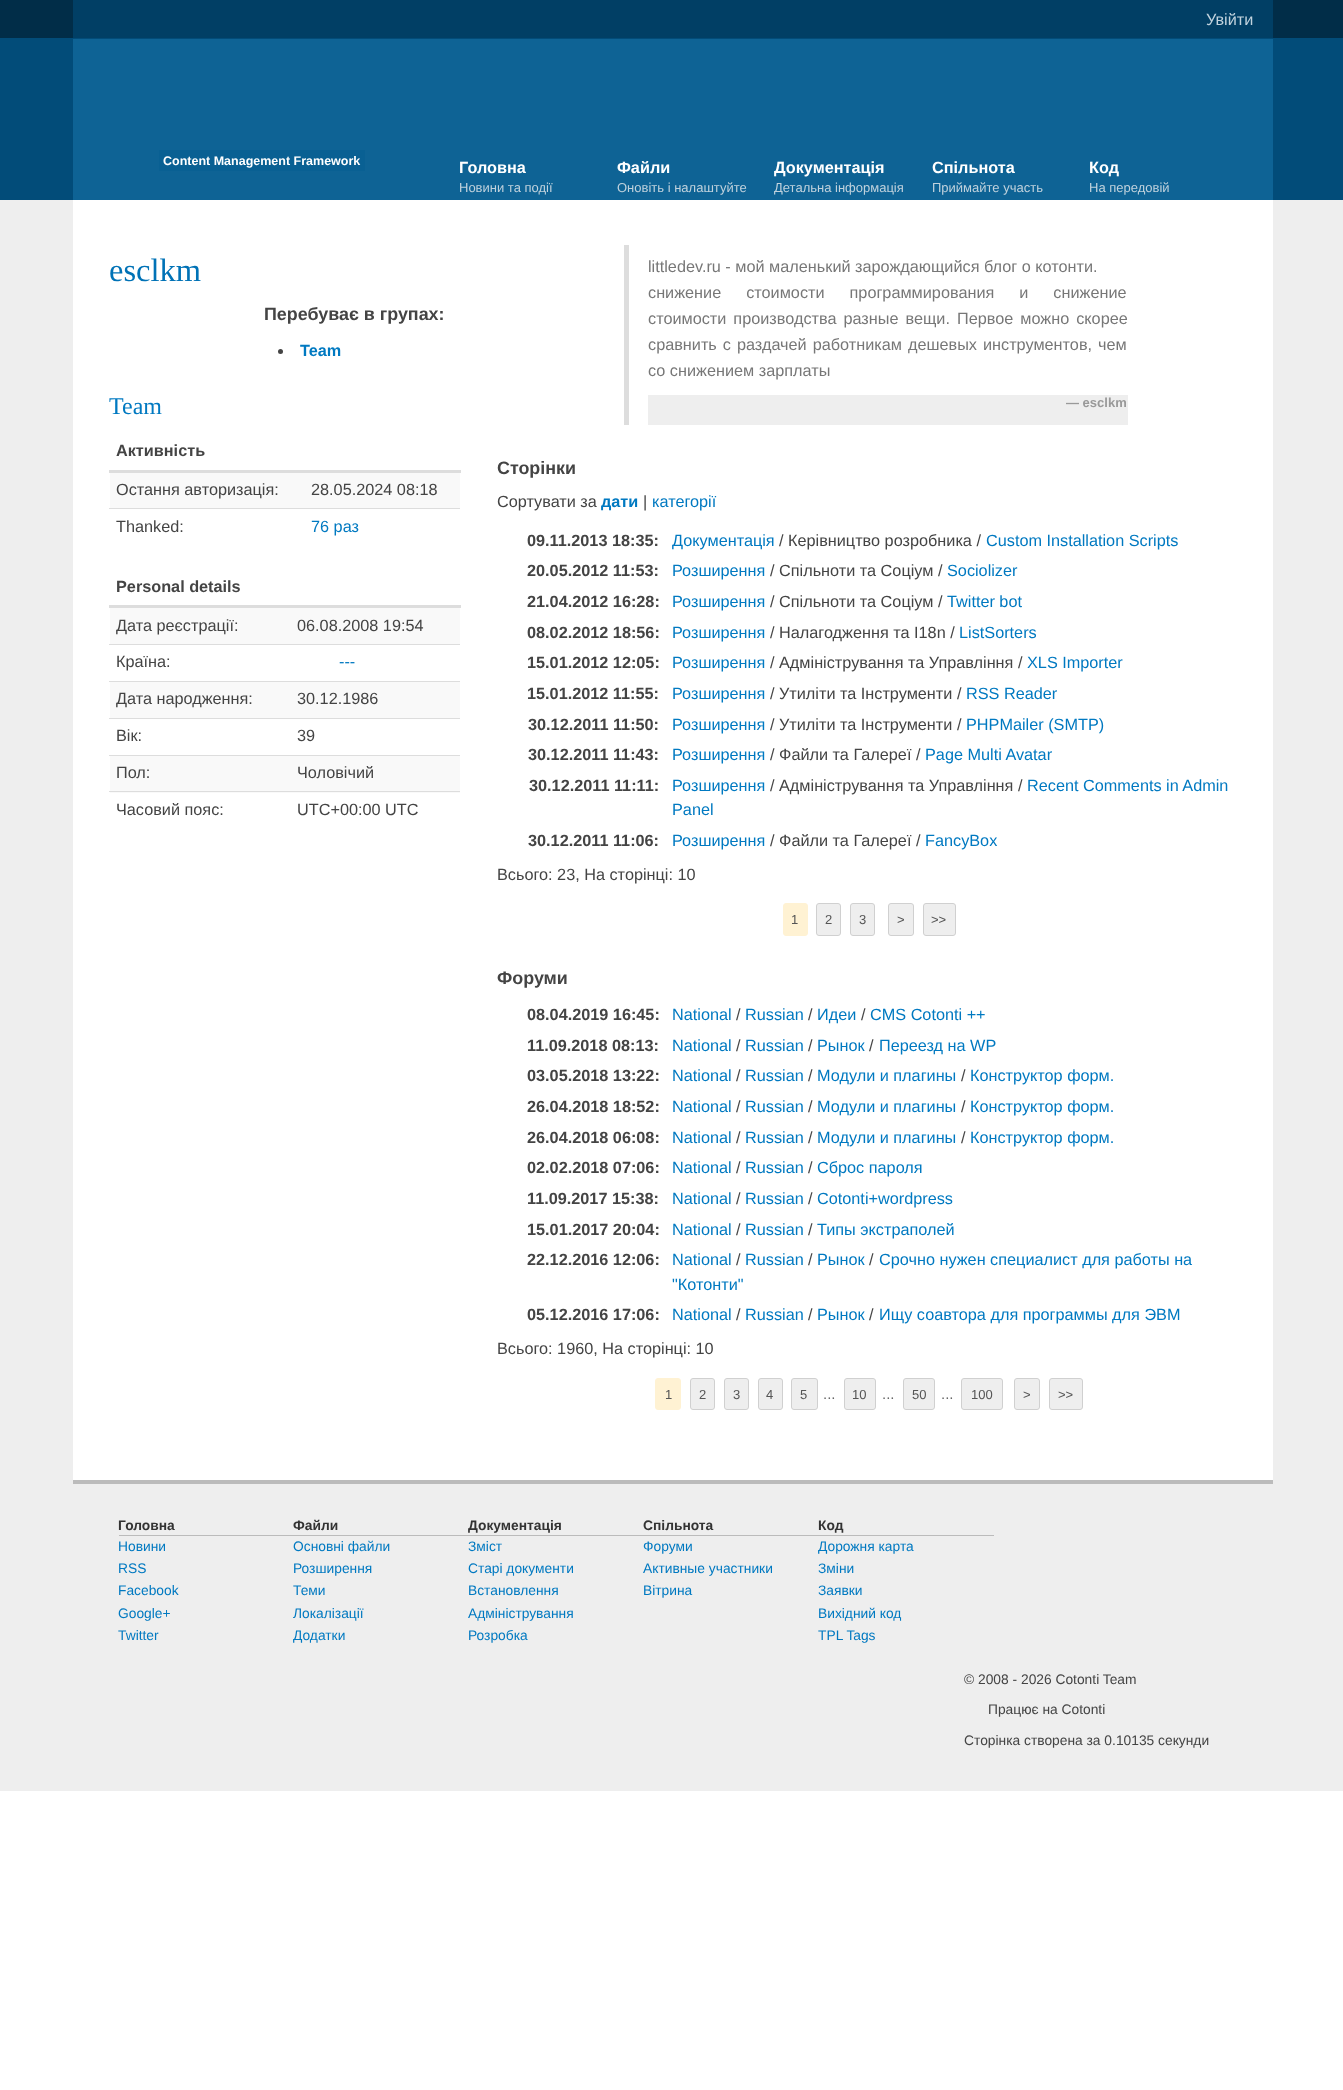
<!DOCTYPE html>
<meta charset="utf-8">
<style>body { margin: 0 } canvas { display: block }</style>
<canvas id="canvas" width="1343" height="2090"></canvas>
<script type="module">
  const canvas = document.getElementById("canvas");
  const ctx = canvas.getContext("2d");
  ctx.miterLimit = 4;
  ctx.fontKerning = "normal";

  ctx.fillStyle = "#ffffff";
  ctx.fillRect(0, 0, 1343, 2090);
  ctx.fillStyle = "#012d48";
  ctx.fillRect(0, 0, 1343, 38);
  ctx.fillStyle = "#013f65";
  ctx.fillRect(73, 0, 1200, 38);
  ctx.font = "16.25px Liberation Sans";
  ctx.fillStyle = "#c0d2dd";
  ctx.fillText("Увійти", 1206, 25);
  ctx.fillStyle = "#024c79";
  ctx.fillRect(0, 38, 1343, 162);
  ctx.fillStyle = "#0e6395";
  ctx.fillRect(73, 39, 1200, 161);
  ctx.fillStyle = "#096093";
  ctx.fillRect(159, 150, 206, 21);
  ctx.font = "bold 12.5px Liberation Sans";
  ctx.fillStyle = "#ffffff";
  ctx.fillText("Content Management Framework", 163, 165);
  ctx.font = "bold 16.25px Liberation Sans";
  ctx.fillText("Головна", 459, 173);
  ctx.font = "13px Liberation Sans";
  ctx.fillStyle = "#c0d2dd";
  ctx.fillText("Новини та події", 459, 192);
  ctx.font = "bold 16.25px Liberation Sans";
  ctx.fillStyle = "#ffffff";
  ctx.fillText("Файли", 617, 173);
  ctx.font = "13px Liberation Sans";
  ctx.fillStyle = "#c0d2dd";
  ctx.fillText("Оновіть і налаштуйте", 617, 192);
  ctx.font = "bold 16.25px Liberation Sans";
  ctx.fillStyle = "#ffffff";
  ctx.fillText("Документація", 774, 173);
  ctx.font = "13px Liberation Sans";
  ctx.fillStyle = "#c0d2dd";
  ctx.fillText("Детальна інформація", 774, 192);
  ctx.font = "bold 16.25px Liberation Sans";
  ctx.fillStyle = "#ffffff";
  ctx.fillText("Спільнота", 932, 173);
  ctx.font = "13px Liberation Sans";
  ctx.fillStyle = "#c0d2dd";
  ctx.fillText("Приймайте участь", 932, 192);
  ctx.font = "bold 16.25px Liberation Sans";
  ctx.fillStyle = "#ffffff";
  ctx.fillText("Код", 1089, 173);
  ctx.font = "13px Liberation Sans";
  ctx.fillStyle = "#c0d2dd";
  ctx.fillText("На передовій", 1089, 192);
  ctx.fillStyle = "#eeeeee";
  ctx.fillRect(0, 200, 1343, 1591);
  ctx.fillStyle = "#ffffff";
  ctx.fillRect(73, 200, 1200, 1280);
  ctx.fillStyle = "#bbbbbb";
  ctx.fillRect(73, 1480, 1200, 4);
  ctx.font = "32.5px Liberation Serif";
  ctx.fillStyle = "#0072b6";
  ctx.fillText("esclkm", 109, 281);
  ctx.font = "bold 17.9px Liberation Sans";
  ctx.fillStyle = "#444444";
  ctx.fillText("Перебуває в групах:", 264, 320);
  ctx.beginPath();
  ctx.arc(280.5, 351.5, 2.5, 0, Math.PI * 2);
  ctx.fill();
  ctx.font = "bold 16.25px Liberation Sans";
  ctx.fillStyle = "#0079c1";
  ctx.fillText("Team", 300, 356);
  ctx.font = "24px Liberation Serif";
  ctx.fillText("Team", 109, 414);
  ctx.fillStyle = "#dddddd";
  ctx.fillRect(109, 470, 352, 3);
  ctx.font = "bold 16.25px Liberation Sans";
  ctx.fillStyle = "#444444";
  ctx.fillText("Активність", 116, 456);
  ctx.fillStyle = "#f9f9f9";
  ctx.fillRect(110, 473, 350, 35);
  ctx.font = "16.25px Liberation Sans";
  ctx.fillStyle = "#444444";
  ctx.fillText("Остання авторизація:", 116, 495);
  ctx.fillText("28.05.2024 08:18", 311, 495);
  ctx.fillText("Thanked:", 116, 532);
  ctx.fillStyle = "#dddddd";
  ctx.fillRect(109, 508, 351, 1);
  ctx.fillStyle = "#0079c1";
  ctx.fillText("76 раз", 311, 532);
  ctx.fillStyle = "#dddddd";
  ctx.fillRect(109, 605, 352, 3);
  ctx.font = "bold 16.25px Liberation Sans";
  ctx.fillStyle = "#444444";
  ctx.fillText("Personal details", 116, 592);
  ctx.fillStyle = "#f9f9f9";
  ctx.fillRect(110, 608, 350, 36);
  ctx.font = "16.25px Liberation Sans";
  ctx.fillStyle = "#444444";
  ctx.fillText("Дата реєстрації:", 116, 631);
  ctx.fillText("06.08.2008 19:54", 297, 631);
  ctx.fillText("Країна:", 116, 667);
  ctx.fillStyle = "#dddddd";
  ctx.fillRect(109, 644, 351, 1);
  ctx.fillStyle = "#0079c1";
  ctx.fillText("---", 339, 667);
  ctx.fillStyle = "#f9f9f9";
  ctx.fillRect(110, 682, 350, 36);
  ctx.fillStyle = "#444444";
  ctx.fillText("Дата народження:", 116, 704);
  ctx.fillStyle = "#dddddd";
  ctx.fillRect(109, 681, 351, 1);
  ctx.fillStyle = "#444444";
  ctx.fillText("30.12.1986", 297, 704);
  ctx.fillText("Вік:", 116, 741);
  ctx.fillStyle = "#dddddd";
  ctx.fillRect(109, 718, 351, 1);
  ctx.fillStyle = "#444444";
  ctx.fillText("39", 297, 741);
  ctx.fillStyle = "#f9f9f9";
  ctx.fillRect(110, 756, 350, 37);
  ctx.fillStyle = "#444444";
  ctx.fillText("Пол:", 116, 778);
  ctx.fillStyle = "#dddddd";
  ctx.fillRect(109, 755, 351, 1);
  ctx.fillStyle = "#444444";
  ctx.fillText("Чоловічий", 297, 778);
  ctx.fillText("Часовий пояс:", 116, 815);
  ctx.fillStyle = "#dddddd";
  ctx.fillRect(109, 791, 351, 1);
  ctx.fillStyle = "#444444";
  ctx.fillText("UTC+00:00 UTC", 297, 815);
  ctx.fillStyle = "#dddddd";
  ctx.fillRect(624, 245, 5, 180);
  ctx.fillStyle = "#777777";
  ctx.fillText("littledev.ru - мой маленький зарождающийся блог о котонти.", 648, 272);
  ctx.wordSpacing = "20.5px";
  ctx.fillText("снижение стоимости программирования и снижение", 648, 298);
  ctx.wordSpacing = "2.5px";
  ctx.fillText("стоимости производства разные вещи. Первое можно скорее", 648, 324);
  ctx.wordSpacing = "1.5px";
  ctx.fillText("сравнить с раздачей работникам дешевых инструментов, чем", 648, 350);
  ctx.wordSpacing = "0px";
  ctx.fillText("со снижением зарплаты", 648, 376);
  ctx.fillStyle = "#eeeeee";
  ctx.fillRect(648, 395, 480, 30);
  ctx.font = "bold 13px Liberation Sans";
  ctx.fillStyle = "#999999";
  ctx.fillText("— esclkm", 1066, 407);
  ctx.font = "bold 17.9px Liberation Sans";
  ctx.fillStyle = "#444444";
  ctx.fillText("Сторінки", 497, 474);
  ctx.font = "16.25px Liberation Sans";
  ctx.fillText("Сортувати за", 497, 507);
  ctx.font = "bold 16.25px Liberation Sans";
  ctx.fillStyle = "#0079c1";
  ctx.fillText("дати", 601, 507);
  ctx.font = "16.25px Liberation Sans";
  ctx.fillStyle = "#444444";
  ctx.fillText("|", 643, 507);
  ctx.fillStyle = "#0079c1";
  ctx.fillText("категорії", 652, 507);
  ctx.font = "bold 16.25px Liberation Sans";
  ctx.fillStyle = "#444444";
  ctx.fillText("09.11.2013 18:35:", 527, 546);
  ctx.font = "16.25px Liberation Sans";
  ctx.fillStyle = "#0079c1";
  ctx.fillText("Документація", 672, 546);
  ctx.fillStyle = "#444444";
  ctx.fillText("/ Керівництво розробника /", 779, 546);
  ctx.fillStyle = "#0079c1";
  ctx.fillText("Custom Installation Scripts", 986, 546);
  ctx.font = "bold 16.25px Liberation Sans";
  ctx.fillStyle = "#444444";
  ctx.fillText("20.05.2012 11:53:", 527, 576);
  ctx.font = "16.25px Liberation Sans";
  ctx.fillStyle = "#0079c1";
  ctx.fillText("Розширення", 672, 576);
  ctx.fillStyle = "#444444";
  ctx.fillText("/ Спільноти та Соціум /", 770, 576);
  ctx.fillStyle = "#0079c1";
  ctx.fillText("Sociolizer", 947, 576);
  ctx.font = "bold 16.25px Liberation Sans";
  ctx.fillStyle = "#444444";
  ctx.fillText("21.04.2012 16:28:", 527, 607);
  ctx.font = "16.25px Liberation Sans";
  ctx.fillStyle = "#0079c1";
  ctx.fillText("Розширення", 672, 607);
  ctx.fillStyle = "#444444";
  ctx.fillText("/ Спільноти та Соціум /", 770, 607);
  ctx.fillStyle = "#0079c1";
  ctx.fillText("Twitter bot", 947, 607);
  ctx.font = "bold 16.25px Liberation Sans";
  ctx.fillStyle = "#444444";
  ctx.fillText("08.02.2012 18:56:", 527, 638);
  ctx.font = "16.25px Liberation Sans";
  ctx.fillStyle = "#0079c1";
  ctx.fillText("Розширення", 672, 638);
  ctx.fillStyle = "#444444";
  ctx.fillText("/ Налагодження та I18n /", 770, 638);
  ctx.fillStyle = "#0079c1";
  ctx.fillText("ListSorters", 959, 638);
  ctx.font = "bold 16.25px Liberation Sans";
  ctx.fillStyle = "#444444";
  ctx.fillText("15.01.2012 12:05:", 527, 668);
  ctx.font = "16.25px Liberation Sans";
  ctx.fillStyle = "#0079c1";
  ctx.fillText("Розширення", 672, 668);
  ctx.fillStyle = "#444444";
  ctx.fillText("/ Адміністрування та Управління /", 770, 668);
  ctx.fillStyle = "#0079c1";
  ctx.fillText("XLS Importer", 1027, 668);
  ctx.font = "bold 16.25px Liberation Sans";
  ctx.fillStyle = "#444444";
  ctx.fillText("15.01.2012 11:55:", 527, 699);
  ctx.font = "16.25px Liberation Sans";
  ctx.fillStyle = "#0079c1";
  ctx.fillText("Розширення", 672, 699);
  ctx.fillStyle = "#444444";
  ctx.fillText("/ Утиліти та Інструменти /", 770, 699);
  ctx.fillStyle = "#0079c1";
  ctx.fillText("RSS Reader", 966, 699);
  ctx.font = "bold 16.25px Liberation Sans";
  ctx.fillStyle = "#444444";
  ctx.fillText("30.12.2011 11:50:", 528, 730);
  ctx.font = "16.25px Liberation Sans";
  ctx.fillStyle = "#0079c1";
  ctx.fillText("Розширення", 672, 730);
  ctx.fillStyle = "#444444";
  ctx.fillText("/ Утиліти та Інструменти /", 770, 730);
  ctx.fillStyle = "#0079c1";
  ctx.fillText("PHPMailer (SMTP)", 966, 730);
  ctx.font = "bold 16.25px Liberation Sans";
  ctx.fillStyle = "#444444";
  ctx.fillText("30.12.2011 11:43:", 528, 760);
  ctx.font = "16.25px Liberation Sans";
  ctx.fillStyle = "#0079c1";
  ctx.fillText("Розширення", 672, 760);
  ctx.fillStyle = "#444444";
  ctx.fillText("/ Файли та Галереї /", 770, 760);
  ctx.fillStyle = "#0079c1";
  ctx.fillText("Page Multi Avatar", 925, 760);
  ctx.font = "bold 16.25px Liberation Sans";
  ctx.fillStyle = "#444444";
  ctx.fillText("30.12.2011 11:11:", 529, 791);
  ctx.font = "16.25px Liberation Sans";
  ctx.fillStyle = "#0079c1";
  ctx.fillText("Розширення", 672, 791);
  ctx.fillStyle = "#444444";
  ctx.fillText("/ Адміністрування та Управління /", 770, 791);
  ctx.fillStyle = "#0079c1";
  ctx.fillText("Recent Comments in Admin", 1027, 791);
  ctx.fillText("Panel", 672, 815);
  ctx.font = "bold 16.25px Liberation Sans";
  ctx.fillStyle = "#444444";
  ctx.fillText("30.12.2011 11:06:", 528, 846);
  ctx.font = "16.25px Liberation Sans";
  ctx.fillStyle = "#0079c1";
  ctx.fillText("Розширення", 672, 846);
  ctx.fillStyle = "#444444";
  ctx.fillText("/ Файли та Галереї /", 770, 846);
  ctx.fillStyle = "#0079c1";
  ctx.fillText("FancyBox", 925, 846);
  ctx.fillStyle = "#444444";
  ctx.fillText("Всього: 23, На сторінці: 10", 497, 880);
  ctx.fillStyle = "#fff2d3";
  ctx.beginPath();
  ctx.roundRect(783.5, 903.5, 24, 32, 2.5);
  ctx.fill();
  ctx.strokeStyle = "#fff2d3";
  ctx.stroke();
  ctx.font = "13px Liberation Sans";
  ctx.fillStyle = "#555555";
  ctx.fillText("1", 791, 924);
  ctx.fillStyle = "#eeeeee";
  ctx.beginPath();
  ctx.roundRect(816.5, 903.5, 24, 32, 2.5);
  ctx.fill();
  ctx.strokeStyle = "#d0d0d0";
  ctx.stroke();
  ctx.fillStyle = "#555555";
  ctx.fillText("2", 825, 924);
  ctx.fillStyle = "#eeeeee";
  ctx.beginPath();
  ctx.roundRect(850.5, 903.5, 24, 32, 2.5);
  ctx.fill();
  ctx.stroke();
  ctx.fillStyle = "#555555";
  ctx.fillText("3", 859, 924);
  ctx.fillStyle = "#eeeeee";
  ctx.beginPath();
  ctx.roundRect(888.5, 903.5, 25, 32, 2.5);
  ctx.fill();
  ctx.stroke();
  ctx.fillStyle = "#555555";
  ctx.fillText(">", 897, 924);
  ctx.fillStyle = "#eeeeee";
  ctx.beginPath();
  ctx.roundRect(923.5, 903.5, 32, 32, 2.5);
  ctx.fill();
  ctx.stroke();
  ctx.fillStyle = "#555555";
  ctx.fillText(">>", 931, 924);
  ctx.font = "bold 17.9px Liberation Sans";
  ctx.fillStyle = "#444444";
  ctx.fillText("Форуми", 497, 984);
  ctx.font = "bold 16.25px Liberation Sans";
  ctx.fillText("08.04.2019 16:45:", 527, 1020);
  ctx.font = "16.25px Liberation Sans";
  ctx.fillStyle = "#0079c1";
  ctx.fillText("National", 672, 1020);
  ctx.fillStyle = "#444444";
  ctx.fillText("/", 736, 1020);
  ctx.fillStyle = "#0079c1";
  ctx.fillText("Russian", 745, 1020);
  ctx.fillStyle = "#444444";
  ctx.fillText("/", 808, 1020);
  ctx.fillStyle = "#0079c1";
  ctx.fillText("Идеи", 817, 1020);
  ctx.fillStyle = "#444444";
  ctx.fillText("/", 861, 1020);
  ctx.fillStyle = "#0079c1";
  ctx.fillText("CMS Cotonti ++", 870, 1020);
  ctx.font = "bold 16.25px Liberation Sans";
  ctx.fillStyle = "#444444";
  ctx.fillText("11.09.2018 08:13:", 527, 1051);
  ctx.font = "16.25px Liberation Sans";
  ctx.fillStyle = "#0079c1";
  ctx.fillText("National", 672, 1051);
  ctx.fillStyle = "#444444";
  ctx.fillText("/", 736, 1051);
  ctx.fillStyle = "#0079c1";
  ctx.fillText("Russian", 745, 1051);
  ctx.fillStyle = "#444444";
  ctx.fillText("/", 808, 1051);
  ctx.fillStyle = "#0079c1";
  ctx.fillText("Рынок", 817, 1051);
  ctx.fillStyle = "#444444";
  ctx.fillText("/", 869, 1051);
  ctx.fillStyle = "#0079c1";
  ctx.fillText("Переезд на WP", 879, 1051);
  ctx.font = "bold 16.25px Liberation Sans";
  ctx.fillStyle = "#444444";
  ctx.fillText("03.05.2018 13:22:", 527, 1081);
  ctx.font = "16.25px Liberation Sans";
  ctx.fillStyle = "#0079c1";
  ctx.fillText("National", 672, 1081);
  ctx.fillStyle = "#444444";
  ctx.fillText("/", 736, 1081);
  ctx.fillStyle = "#0079c1";
  ctx.fillText("Russian", 745, 1081);
  ctx.fillStyle = "#444444";
  ctx.fillText("/", 808, 1081);
  ctx.fillStyle = "#0079c1";
  ctx.fillText("Модули и плагины", 817, 1081);
  ctx.fillStyle = "#444444";
  ctx.fillText("/", 961, 1081);
  ctx.fillStyle = "#0079c1";
  ctx.fillText("Конструктор форм.", 970, 1081);
  ctx.font = "bold 16.25px Liberation Sans";
  ctx.fillStyle = "#444444";
  ctx.fillText("26.04.2018 18:52:", 527, 1112);
  ctx.font = "16.25px Liberation Sans";
  ctx.fillStyle = "#0079c1";
  ctx.fillText("National", 672, 1112);
  ctx.fillStyle = "#444444";
  ctx.fillText("/", 736, 1112);
  ctx.fillStyle = "#0079c1";
  ctx.fillText("Russian", 745, 1112);
  ctx.fillStyle = "#444444";
  ctx.fillText("/", 808, 1112);
  ctx.fillStyle = "#0079c1";
  ctx.fillText("Модули и плагины", 817, 1112);
  ctx.fillStyle = "#444444";
  ctx.fillText("/", 961, 1112);
  ctx.fillStyle = "#0079c1";
  ctx.fillText("Конструктор форм.", 970, 1112);
  ctx.font = "bold 16.25px Liberation Sans";
  ctx.fillStyle = "#444444";
  ctx.fillText("26.04.2018 06:08:", 527, 1143);
  ctx.font = "16.25px Liberation Sans";
  ctx.fillStyle = "#0079c1";
  ctx.fillText("National", 672, 1143);
  ctx.fillStyle = "#444444";
  ctx.fillText("/", 736, 1143);
  ctx.fillStyle = "#0079c1";
  ctx.fillText("Russian", 745, 1143);
  ctx.fillStyle = "#444444";
  ctx.fillText("/", 808, 1143);
  ctx.fillStyle = "#0079c1";
  ctx.fillText("Модули и плагины", 817, 1143);
  ctx.fillStyle = "#444444";
  ctx.fillText("/", 961, 1143);
  ctx.fillStyle = "#0079c1";
  ctx.fillText("Конструктор форм.", 970, 1143);
  ctx.font = "bold 16.25px Liberation Sans";
  ctx.fillStyle = "#444444";
  ctx.fillText("02.02.2018 07:06:", 527, 1173);
  ctx.font = "16.25px Liberation Sans";
  ctx.fillStyle = "#0079c1";
  ctx.fillText("National", 672, 1173);
  ctx.fillStyle = "#444444";
  ctx.fillText("/", 736, 1173);
  ctx.fillStyle = "#0079c1";
  ctx.fillText("Russian", 745, 1173);
  ctx.fillStyle = "#444444";
  ctx.fillText("/", 808, 1173);
  ctx.fillStyle = "#0079c1";
  ctx.fillText("Сброс пароля", 817, 1173);
  ctx.font = "bold 16.25px Liberation Sans";
  ctx.fillStyle = "#444444";
  ctx.fillText("11.09.2017 15:38:", 527, 1204);
  ctx.font = "16.25px Liberation Sans";
  ctx.fillStyle = "#0079c1";
  ctx.fillText("National", 672, 1204);
  ctx.fillStyle = "#444444";
  ctx.fillText("/", 736, 1204);
  ctx.fillStyle = "#0079c1";
  ctx.fillText("Russian", 745, 1204);
  ctx.fillStyle = "#444444";
  ctx.fillText("/", 808, 1204);
  ctx.fillStyle = "#0079c1";
  ctx.fillText("Cotonti+wordpress", 817, 1204);
  ctx.font = "bold 16.25px Liberation Sans";
  ctx.fillStyle = "#444444";
  ctx.fillText("15.01.2017 20:04:", 527, 1235);
  ctx.font = "16.25px Liberation Sans";
  ctx.fillStyle = "#0079c1";
  ctx.fillText("National", 672, 1235);
  ctx.fillStyle = "#444444";
  ctx.fillText("/", 736, 1235);
  ctx.fillStyle = "#0079c1";
  ctx.fillText("Russian", 745, 1235);
  ctx.fillStyle = "#444444";
  ctx.fillText("/", 808, 1235);
  ctx.fillStyle = "#0079c1";
  ctx.fillText("Типы экстраполей", 817, 1235);
  ctx.font = "bold 16.25px Liberation Sans";
  ctx.fillStyle = "#444444";
  ctx.fillText("22.12.2016 12:06:", 527, 1265);
  ctx.font = "16.25px Liberation Sans";
  ctx.fillStyle = "#0079c1";
  ctx.fillText("National", 672, 1265);
  ctx.fillStyle = "#444444";
  ctx.fillText("/", 736, 1265);
  ctx.fillStyle = "#0079c1";
  ctx.fillText("Russian", 745, 1265);
  ctx.fillStyle = "#444444";
  ctx.fillText("/", 808, 1265);
  ctx.fillStyle = "#0079c1";
  ctx.fillText("Рынок", 817, 1265);
  ctx.fillStyle = "#444444";
  ctx.fillText("/", 869, 1265);
  ctx.fillStyle = "#0079c1";
  ctx.fillText("Срочно нужен специалист для работы на", 879, 1265);
  ctx.fillText("\"Котонти\"", 672, 1290);
  ctx.font = "bold 16.25px Liberation Sans";
  ctx.fillStyle = "#444444";
  ctx.fillText("05.12.2016 17:06:", 527, 1320);
  ctx.font = "16.25px Liberation Sans";
  ctx.fillStyle = "#0079c1";
  ctx.fillText("National", 672, 1320);
  ctx.fillStyle = "#444444";
  ctx.fillText("/", 736, 1320);
  ctx.fillStyle = "#0079c1";
  ctx.fillText("Russian", 745, 1320);
  ctx.fillStyle = "#444444";
  ctx.fillText("/", 808, 1320);
  ctx.fillStyle = "#0079c1";
  ctx.fillText("Рынок", 817, 1320);
  ctx.fillStyle = "#444444";
  ctx.fillText("/", 869, 1320);
  ctx.fillStyle = "#0079c1";
  ctx.fillText("Ищу соавтора для программы для ЭВМ", 879, 1320);
  ctx.fillStyle = "#444444";
  ctx.fillText("Всього: 1960, На сторінці: 10", 497, 1354);
  ctx.fillStyle = "#fff2d3";
  ctx.beginPath();
  ctx.roundRect(655.5, 1378.5, 25, 31, 2.5);
  ctx.fill();
  ctx.strokeStyle = "#fff2d3";
  ctx.stroke();
  ctx.font = "13px Liberation Sans";
  ctx.fillStyle = "#555555";
  ctx.fillText("1", 665, 1399);
  ctx.fillStyle = "#eeeeee";
  ctx.beginPath();
  ctx.roundRect(690.5, 1378.5, 24, 31, 2.5);
  ctx.fill();
  ctx.strokeStyle = "#d0d0d0";
  ctx.stroke();
  ctx.fillStyle = "#555555";
  ctx.fillText("2", 699, 1399);
  ctx.fillStyle = "#eeeeee";
  ctx.beginPath();
  ctx.roundRect(724.5, 1378.5, 24, 31, 2.5);
  ctx.fill();
  ctx.stroke();
  ctx.fillStyle = "#555555";
  ctx.fillText("3", 733, 1399);
  ctx.fillStyle = "#eeeeee";
  ctx.beginPath();
  ctx.roundRect(758.5, 1378.5, 24, 31, 2.5);
  ctx.fill();
  ctx.stroke();
  ctx.fillStyle = "#555555";
  ctx.fillText("4", 766, 1399);
  ctx.fillStyle = "#eeeeee";
  ctx.beginPath();
  ctx.roundRect(791.5, 1378.5, 26, 31, 2.5);
  ctx.fill();
  ctx.stroke();
  ctx.fillStyle = "#555555";
  ctx.fillText("5", 800, 1399);
  ctx.font = "15px Liberation Sans";
  ctx.fillStyle = "#666666";
  ctx.fillText("...", 823, 1399);
  ctx.fillStyle = "#eeeeee";
  ctx.beginPath();
  ctx.roundRect(844.5, 1378.5, 31, 31, 2.5);
  ctx.fill();
  ctx.stroke();
  ctx.font = "13px Liberation Sans";
  ctx.fillStyle = "#555555";
  ctx.fillText("10", 852, 1399);
  ctx.font = "15px Liberation Sans";
  ctx.fillStyle = "#666666";
  ctx.fillText("...", 882, 1399);
  ctx.fillStyle = "#eeeeee";
  ctx.beginPath();
  ctx.roundRect(903.5, 1378.5, 31, 31, 2.5);
  ctx.fill();
  ctx.stroke();
  ctx.font = "13px Liberation Sans";
  ctx.fillStyle = "#555555";
  ctx.fillText("50", 912, 1399);
  ctx.font = "15px Liberation Sans";
  ctx.fillStyle = "#666666";
  ctx.fillText("...", 941, 1399);
  ctx.fillStyle = "#eeeeee";
  ctx.beginPath();
  ctx.roundRect(961.5, 1378.5, 41, 31, 2.5);
  ctx.fill();
  ctx.stroke();
  ctx.font = "13px Liberation Sans";
  ctx.fillStyle = "#555555";
  ctx.fillText("100", 971, 1399);
  ctx.fillStyle = "#eeeeee";
  ctx.beginPath();
  ctx.roundRect(1014.5, 1378.5, 25, 31, 2.5);
  ctx.fill();
  ctx.stroke();
  ctx.fillStyle = "#555555";
  ctx.fillText(">", 1023, 1399);
  ctx.fillStyle = "#eeeeee";
  ctx.beginPath();
  ctx.roundRect(1049.5, 1378.5, 33, 31, 2.5);
  ctx.fill();
  ctx.stroke();
  ctx.fillStyle = "#555555";
  ctx.fillText(">>", 1058, 1399);
  ctx.fillStyle = "#bbbbbb";
  ctx.fillRect(119, 1535, 875, 1);
  ctx.font = "bold 13.8px Liberation Sans";
  ctx.fillStyle = "#333333";
  ctx.fillText("Головна", 118, 1530);
  ctx.font = "13.8px Liberation Sans";
  ctx.fillStyle = "#0079c1";
  ctx.fillText("Новини", 118, 1551);
  ctx.fillText("RSS", 118, 1573);
  ctx.fillText("Facebook", 118, 1595);
  ctx.fillText("Google+", 118, 1618);
  ctx.fillText("Twitter", 118, 1640);
  ctx.font = "bold 13.8px Liberation Sans";
  ctx.fillStyle = "#333333";
  ctx.fillText("Файли", 293, 1530);
  ctx.font = "13.8px Liberation Sans";
  ctx.fillStyle = "#0079c1";
  ctx.fillText("Основні файли", 293, 1551);
  ctx.fillText("Розширення", 293, 1573);
  ctx.fillText("Теми", 293, 1595);
  ctx.fillText("Локалізації", 293, 1618);
  ctx.fillText("Додатки", 293, 1640);
  ctx.font = "bold 13.8px Liberation Sans";
  ctx.fillStyle = "#333333";
  ctx.fillText("Документація", 468, 1530);
  ctx.font = "13.8px Liberation Sans";
  ctx.fillStyle = "#0079c1";
  ctx.fillText("Зміст", 468, 1551);
  ctx.fillText("Старі документи", 468, 1573);
  ctx.fillText("Встановлення", 468, 1595);
  ctx.fillText("Адміністрування", 468, 1618);
  ctx.fillText("Розробка", 468, 1640);
  ctx.font = "bold 13.8px Liberation Sans";
  ctx.fillStyle = "#333333";
  ctx.fillText("Спільнота", 643, 1530);
  ctx.font = "13.8px Liberation Sans";
  ctx.fillStyle = "#0079c1";
  ctx.fillText("Форуми", 643, 1551);
  ctx.fillText("Активные участники", 643, 1573);
  ctx.fillText("Вітрина", 643, 1595);
  ctx.font = "bold 13.8px Liberation Sans";
  ctx.fillStyle = "#333333";
  ctx.fillText("Код", 818, 1530);
  ctx.font = "13.8px Liberation Sans";
  ctx.fillStyle = "#0079c1";
  ctx.fillText("Дорожня карта", 818, 1551);
  ctx.fillText("Зміни", 818, 1573);
  ctx.fillText("Заявки", 818, 1595);
  ctx.fillText("Вихідний код", 818, 1618);
  ctx.fillText("TPL Tags", 818, 1640);
  ctx.fillStyle = "#444444";
  ctx.fillText("© 2008 - 2026 Cotonti Team", 964, 1684);
  ctx.fillText("Працює на Cotonti", 988, 1714);
  ctx.fillText("Сторінка створена за 0.10135 секунди", 964, 1745);
</script>
